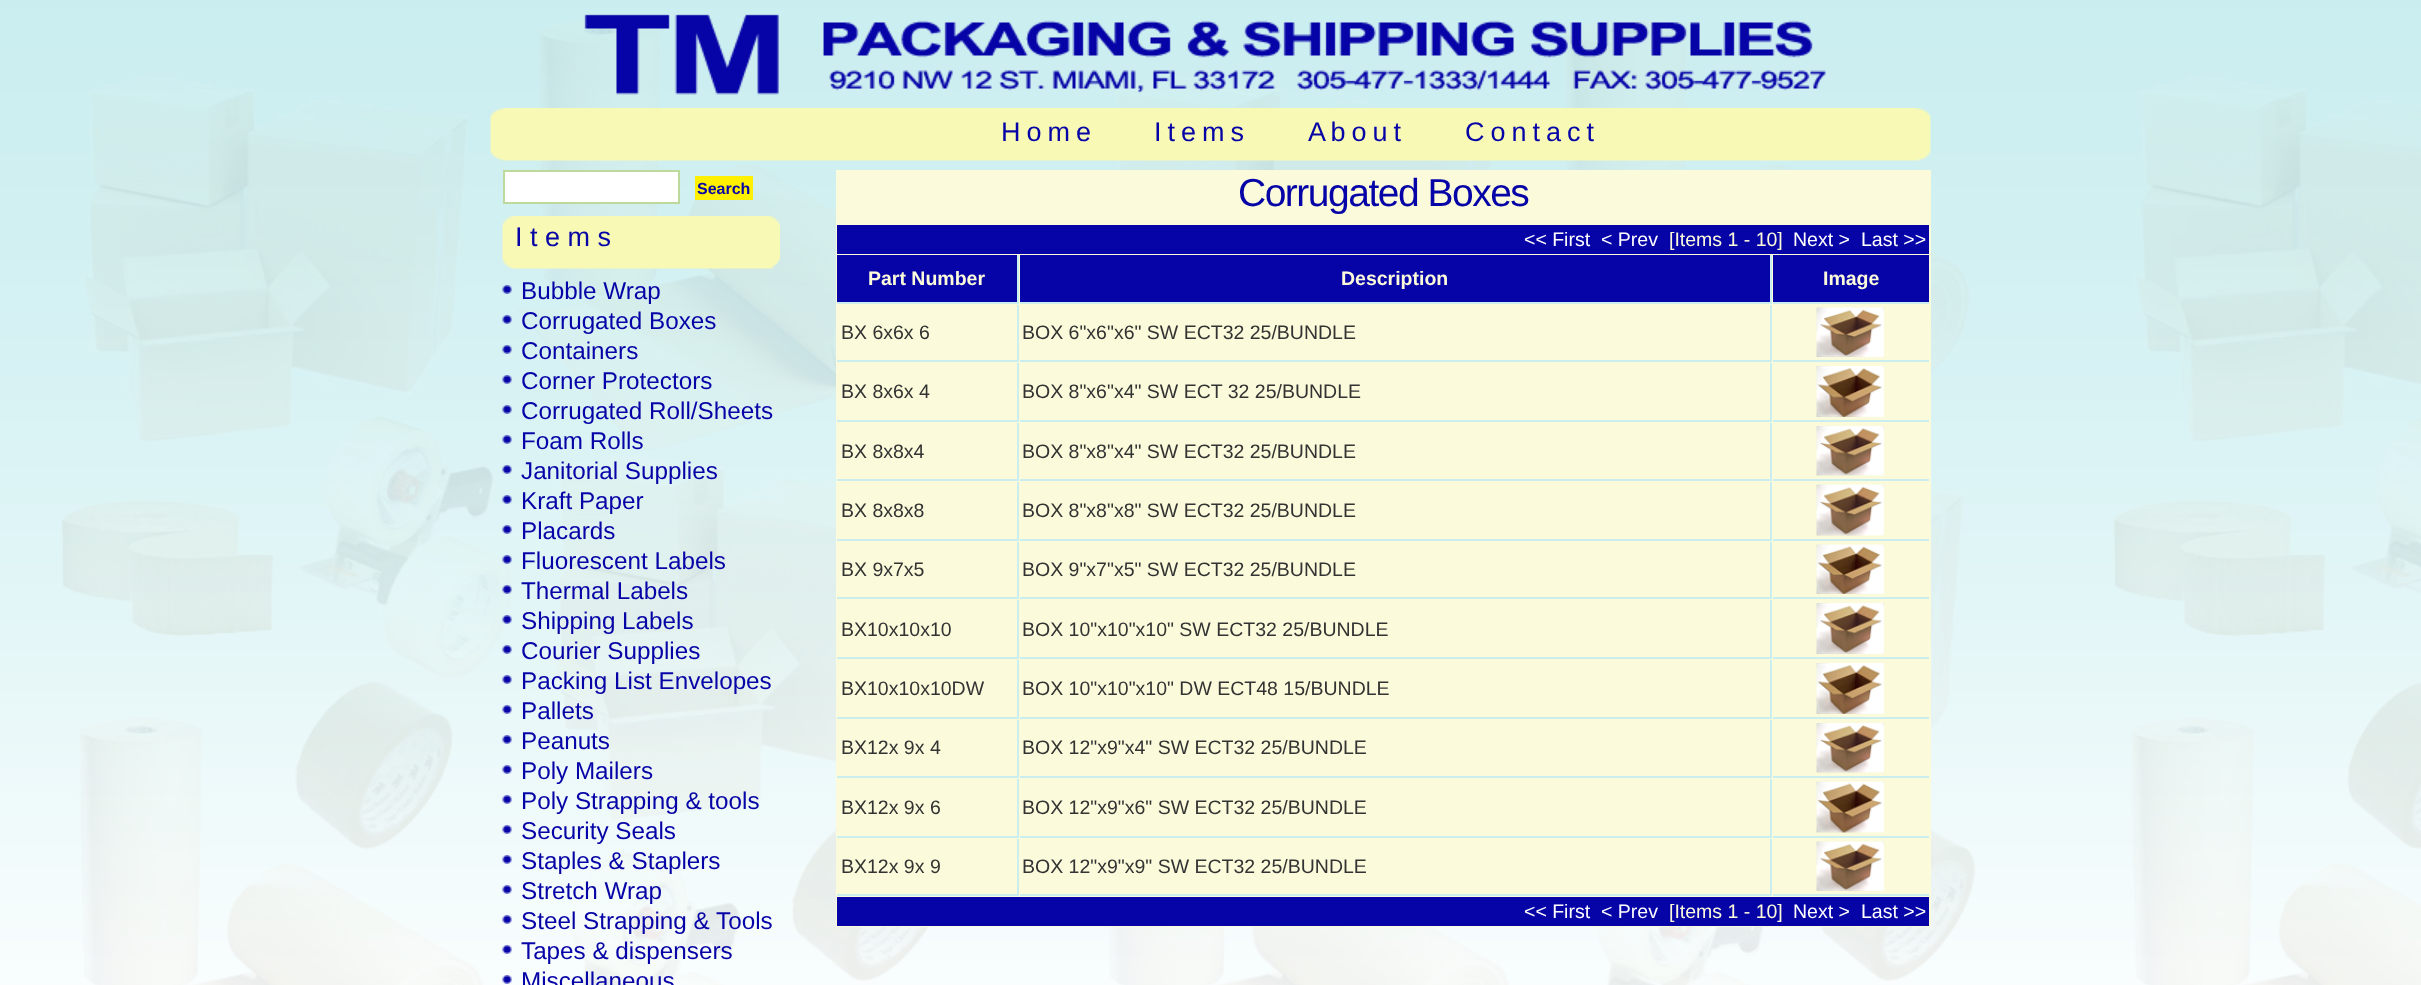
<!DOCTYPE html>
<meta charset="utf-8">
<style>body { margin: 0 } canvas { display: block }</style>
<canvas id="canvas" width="2421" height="985"></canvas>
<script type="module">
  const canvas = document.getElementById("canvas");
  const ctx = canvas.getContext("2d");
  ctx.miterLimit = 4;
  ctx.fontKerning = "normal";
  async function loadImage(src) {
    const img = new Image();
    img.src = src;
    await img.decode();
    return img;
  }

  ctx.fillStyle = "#ffffff";
  ctx.fillRect(0, 0, 2421, 985);
  ctx.drawImage(await loadImage("img1.png"), 0, 0, 2421, 985);
  ctx.drawImage(await loadImage("img2.png"), 584, 14, 1242, 81);
  ctx.drawImage(await loadImage("img3.png"), 490, 108, 1441, 53);
  ctx.letterSpacing = "-0.75px";
  ctx.font = "27px Liberation Sans";
  ctx.fillStyle = "#0603a7";
  ctx.fillText("H o m e", 1001, 141);
  ctx.fillText("I t e m s", 1154, 141);
  ctx.fillText("A b o u t", 1308, 141);
  ctx.fillText("C o n t a c t", 1465, 141);
  ctx.fillStyle = "#ffffff";
  ctx.beginPath();
  ctx.rect(504, 171, 175, 32);
  ctx.fill();
  ctx.strokeStyle = "#bed99c";
  ctx.lineWidth = 2;
  ctx.stroke();
  ctx.fillStyle = "#fff002";
  ctx.fillRect(695, 176, 58, 24);
  ctx.letterSpacing = "0px";
  ctx.font = "bold 16px Liberation Sans";
  ctx.fillStyle = "#0603a7";
  ctx.fillText("Search", 697, 194);
  ctx.drawImage(await loadImage("img4.png"), 502, 216, 278, 53);
  ctx.font = "27px Liberation Sans";
  ctx.fillText("I t e m s", 515, 246);
  ctx.drawImage(await loadImage("img5.png"), 502, 285, 10, 9);
  ctx.font = "24.25px Liberation Sans";
  ctx.fillText("Bubble Wrap", 521, 299);
  ctx.drawImage(await loadImage("img6.png"), 502, 315, 10, 9);
  ctx.fillText("Corrugated Boxes", 521, 329);
  ctx.drawImage(await loadImage("img7.png"), 502, 345, 10, 9);
  ctx.fillText("Containers", 521, 359);
  ctx.drawImage(await loadImage("img8.png"), 502, 375, 10, 9);
  ctx.fillText("Corner Protectors", 521, 389);
  ctx.drawImage(await loadImage("img9.png"), 502, 405, 10, 9);
  ctx.fillText("Corrugated Roll/Sheets", 521, 419);
  ctx.drawImage(await loadImage("img10.png"), 502, 435, 10, 9);
  ctx.fillText("Foam Rolls", 521, 449);
  ctx.drawImage(await loadImage("img11.png"), 502, 465, 10, 9);
  ctx.fillText("Janitorial Supplies", 521, 479);
  ctx.drawImage(await loadImage("img12.png"), 502, 495, 10, 9);
  ctx.fillText("Kraft Paper", 521, 509);
  ctx.drawImage(await loadImage("img13.png"), 502, 525, 10, 9);
  ctx.fillText("Placards", 521, 539);
  ctx.drawImage(await loadImage("img14.png"), 502, 555, 10, 9);
  ctx.fillText("Fluorescent Labels", 521, 569);
  ctx.drawImage(await loadImage("img15.png"), 502, 585, 10, 9);
  ctx.fillText("Thermal Labels", 521, 599);
  ctx.drawImage(await loadImage("img16.png"), 502, 615, 10, 9);
  ctx.fillText("Shipping Labels", 521, 629);
  ctx.drawImage(await loadImage("img17.png"), 502, 645, 10, 9);
  ctx.fillText("Courier Supplies", 521, 659);
  ctx.drawImage(await loadImage("img18.png"), 502, 675, 10, 9);
  ctx.fillText("Packing List Envelopes", 521, 689);
  ctx.drawImage(await loadImage("img19.png"), 502, 705, 10, 9);
  ctx.fillText("Pallets", 521, 719);
  ctx.drawImage(await loadImage("img20.png"), 502, 735, 10, 9);
  ctx.fillText("Peanuts", 521, 749);
  ctx.drawImage(await loadImage("img21.png"), 502, 765, 10, 9);
  ctx.fillText("Poly Mailers", 521, 779);
  ctx.drawImage(await loadImage("img22.png"), 502, 795, 10, 9);
  ctx.fillText("Poly Strapping & tools", 521, 809);
  ctx.drawImage(await loadImage("img23.png"), 502, 825, 10, 9);
  ctx.fillText("Security Seals", 521, 839);
  ctx.drawImage(await loadImage("img24.png"), 502, 855, 10, 9);
  ctx.fillText("Staples & Staplers", 521, 869);
  ctx.drawImage(await loadImage("img25.png"), 502, 885, 10, 9);
  ctx.fillText("Stretch Wrap", 521, 899);
  ctx.drawImage(await loadImage("img26.png"), 502, 915, 10, 9);
  ctx.fillText("Steel Strapping & Tools", 521, 929);
  ctx.drawImage(await loadImage("img27.png"), 502, 945, 10, 9);
  ctx.fillText("Tapes & dispensers", 521, 959);
  ctx.drawImage(await loadImage("img28.png"), 502, 975, 10, 9);
  ctx.fillText("Miscellaneous", 521, 989);
  ctx.fillStyle = "#fbfbdb";
  ctx.fillRect(836, 170, 1095, 757);
  ctx.letterSpacing = "-1.5px";
  ctx.font = "39px Liberation Sans";
  ctx.fillStyle = "#0603a7";
  ctx.fillText("Corrugated Boxes", 1238, 206);
  ctx.fillRect(837, 225, 1092, 29);
  ctx.letterSpacing = "0px";
  ctx.font = "19.5px Liberation Sans";
  ctx.fillStyle = "#ffffff";
  ctx.fillText("<< First", 1524, 246);
  ctx.fillText("< Prev", 1601, 246);
  ctx.fillStyle = "#fbfbdb";
  ctx.fillText("[Items 1 - 10]", 1669, 246);
  ctx.fillStyle = "#ffffff";
  ctx.fillText("Next >", 1793, 246);
  ctx.fillText("Last >>", 1861, 246);
  ctx.fillStyle = "#0603a7";
  ctx.fillRect(837, 255, 180, 47);
  ctx.fillStyle = "#caeef0";
  ctx.fillRect(1017, 255, 2, 48);
  ctx.fillRect(837, 302, 182, 2);
  ctx.font = "bold 19.5px Liberation Sans";
  ctx.fillStyle = "#fbfbdb";
  ctx.fillText("Part Number", 868, 285);
  ctx.fillStyle = "#0603a7";
  ctx.fillRect(1020, 255, 750, 47);
  ctx.fillStyle = "#caeef0";
  ctx.fillRect(1770, 255, 2, 48);
  ctx.fillRect(1020, 302, 752, 2);
  ctx.fillStyle = "#fbfbdb";
  ctx.fillText("Description", 1341, 285);
  ctx.fillStyle = "#0603a7";
  ctx.fillRect(1773, 255, 156, 47);
  ctx.fillStyle = "#caeef0";
  ctx.fillRect(1773, 302, 156, 2);
  ctx.fillStyle = "#fbfbdb";
  ctx.fillText("Image", 1823, 285);
  ctx.fillStyle = "#caeef0";
  ctx.fillRect(1017, 305, 2, 57);
  ctx.fillRect(837, 360, 182, 2);
  ctx.font = "19.5px Liberation Sans";
  ctx.fillStyle = "#333333";
  ctx.fillText("BX 6x6x 6", 841, 339);
  ctx.fillStyle = "#caeef0";
  ctx.fillRect(1770, 305, 2, 57);
  ctx.fillRect(1020, 360, 752, 2);
  ctx.fillStyle = "#333333";
  ctx.fillText("BOX 6\"x6\"x6\" SW ECT32 25/BUNDLE", 1022, 339);
  ctx.fillStyle = "#caeef0";
  ctx.fillRect(1773, 360, 156, 2);
  ctx.drawImage(await loadImage("img29.png"), 1816, 307, 68, 50);
  ctx.fillRect(1017, 363, 2, 59);
  ctx.fillRect(837, 420, 182, 2);
  ctx.fillStyle = "#333333";
  ctx.fillText("BX 8x6x 4", 841, 398);
  ctx.fillStyle = "#caeef0";
  ctx.fillRect(1770, 363, 2, 59);
  ctx.fillRect(1020, 420, 752, 2);
  ctx.fillStyle = "#333333";
  ctx.fillText("BOX 8\"x6\"x4\" SW ECT 32 25/BUNDLE", 1022, 398);
  ctx.fillStyle = "#caeef0";
  ctx.fillRect(1773, 420, 156, 2);
  ctx.drawImage(await loadImage("img30.png"), 1816, 366, 68, 51);
  ctx.fillRect(1017, 423, 2, 57);
  ctx.fillRect(837, 479, 182, 2);
  ctx.fillStyle = "#333333";
  ctx.fillText("BX 8x8x4", 841, 458);
  ctx.fillStyle = "#caeef0";
  ctx.fillRect(1770, 423, 2, 57);
  ctx.fillRect(1020, 479, 752, 2);
  ctx.fillStyle = "#333333";
  ctx.fillText("BOX 8\"x8\"x4\" SW ECT32 25/BUNDLE", 1022, 458);
  ctx.fillStyle = "#caeef0";
  ctx.fillRect(1773, 479, 156, 2);
  ctx.drawImage(await loadImage("img31.png"), 1816, 426, 68, 50);
  ctx.fillRect(1017, 482, 2, 58);
  ctx.fillRect(837, 539, 182, 2);
  ctx.fillStyle = "#333333";
  ctx.fillText("BX 8x8x8", 841, 517);
  ctx.fillStyle = "#caeef0";
  ctx.fillRect(1770, 482, 2, 58);
  ctx.fillRect(1020, 539, 752, 2);
  ctx.fillStyle = "#333333";
  ctx.fillText("BOX 8\"x8\"x8\" SW ECT32 25/BUNDLE", 1022, 517);
  ctx.fillStyle = "#caeef0";
  ctx.fillRect(1773, 539, 156, 2);
  ctx.drawImage(await loadImage("img32.png"), 1816, 484, 68, 52);
  ctx.fillRect(1017, 542, 2, 57);
  ctx.fillRect(837, 597, 182, 2);
  ctx.fillStyle = "#333333";
  ctx.fillText("BX 9x7x5", 841, 576);
  ctx.fillStyle = "#caeef0";
  ctx.fillRect(1770, 542, 2, 57);
  ctx.fillRect(1020, 597, 752, 2);
  ctx.fillStyle = "#333333";
  ctx.fillText("BOX 9\"x7\"x5\" SW ECT32 25/BUNDLE", 1022, 576);
  ctx.fillStyle = "#caeef0";
  ctx.fillRect(1773, 597, 156, 2);
  ctx.drawImage(await loadImage("img33.png"), 1816, 544, 68, 50);
  ctx.fillRect(1017, 600, 2, 59);
  ctx.fillRect(837, 657, 182, 2);
  ctx.fillStyle = "#333333";
  ctx.fillText("BX10x10x10", 841, 636);
  ctx.fillStyle = "#caeef0";
  ctx.fillRect(1770, 600, 2, 59);
  ctx.fillRect(1020, 657, 752, 2);
  ctx.fillStyle = "#333333";
  ctx.fillText("BOX 10\"x10\"x10\" SW ECT32 25/BUNDLE", 1022, 636);
  ctx.fillStyle = "#caeef0";
  ctx.fillRect(1773, 657, 156, 2);
  ctx.drawImage(await loadImage("img34.png"), 1816, 603, 68, 51);
  ctx.fillRect(1017, 660, 2, 59);
  ctx.fillRect(837, 717, 182, 2);
  ctx.fillStyle = "#333333";
  ctx.fillText("BX10x10x10DW", 841, 695);
  ctx.fillStyle = "#caeef0";
  ctx.fillRect(1770, 660, 2, 59);
  ctx.fillRect(1020, 717, 752, 2);
  ctx.fillStyle = "#333333";
  ctx.fillText("BOX 10\"x10\"x10\" DW ECT48 15/BUNDLE", 1022, 695);
  ctx.fillStyle = "#caeef0";
  ctx.fillRect(1773, 717, 156, 2);
  ctx.drawImage(await loadImage("img30.png"), 1816, 663, 68, 51);
  ctx.fillRect(1017, 720, 2, 57);
  ctx.fillRect(837, 776, 182, 2);
  ctx.fillStyle = "#333333";
  ctx.fillText("BX12x 9x 4", 841, 754);
  ctx.fillStyle = "#caeef0";
  ctx.fillRect(1770, 720, 2, 57);
  ctx.fillRect(1020, 776, 752, 2);
  ctx.fillStyle = "#333333";
  ctx.fillText("BOX 12\"x9\"x4\" SW ECT32 25/BUNDLE", 1022, 754);
  ctx.fillStyle = "#caeef0";
  ctx.fillRect(1773, 776, 156, 2);
  ctx.drawImage(await loadImage("img31.png"), 1816, 723, 68, 50);
  ctx.fillRect(1017, 779, 2, 58);
  ctx.fillRect(837, 836, 182, 2);
  ctx.fillStyle = "#333333";
  ctx.fillText("BX12x 9x 6", 841, 814);
  ctx.fillStyle = "#caeef0";
  ctx.fillRect(1770, 779, 2, 58);
  ctx.fillRect(1020, 836, 752, 2);
  ctx.fillStyle = "#333333";
  ctx.fillText("BOX 12\"x9\"x6\" SW ECT32 25/BUNDLE", 1022, 814);
  ctx.fillStyle = "#caeef0";
  ctx.fillRect(1773, 836, 156, 2);
  ctx.drawImage(await loadImage("img35.png"), 1816, 781, 68, 52);
  ctx.fillRect(1017, 839, 2, 57);
  ctx.fillRect(837, 894, 182, 2);
  ctx.fillStyle = "#333333";
  ctx.fillText("BX12x 9x 9", 841, 873);
  ctx.fillStyle = "#caeef0";
  ctx.fillRect(1770, 839, 2, 57);
  ctx.fillRect(1020, 894, 752, 2);
  ctx.fillStyle = "#333333";
  ctx.fillText("BOX 12\"x9\"x9\" SW ECT32 25/BUNDLE", 1022, 873);
  ctx.fillStyle = "#caeef0";
  ctx.fillRect(1773, 894, 156, 2);
  ctx.drawImage(await loadImage("img29.png"), 1816, 841, 68, 50);
  ctx.fillStyle = "#0603a7";
  ctx.fillRect(837, 897, 1092, 29);
  ctx.fillStyle = "#ffffff";
  ctx.fillText("<< First", 1524, 918);
  ctx.fillText("< Prev", 1601, 918);
  ctx.fillStyle = "#fbfbdb";
  ctx.fillText("[Items 1 - 10]", 1669, 918);
  ctx.fillStyle = "#ffffff";
  ctx.fillText("Next >", 1793, 918);
  ctx.fillText("Last >>", 1861, 918);
</script>
